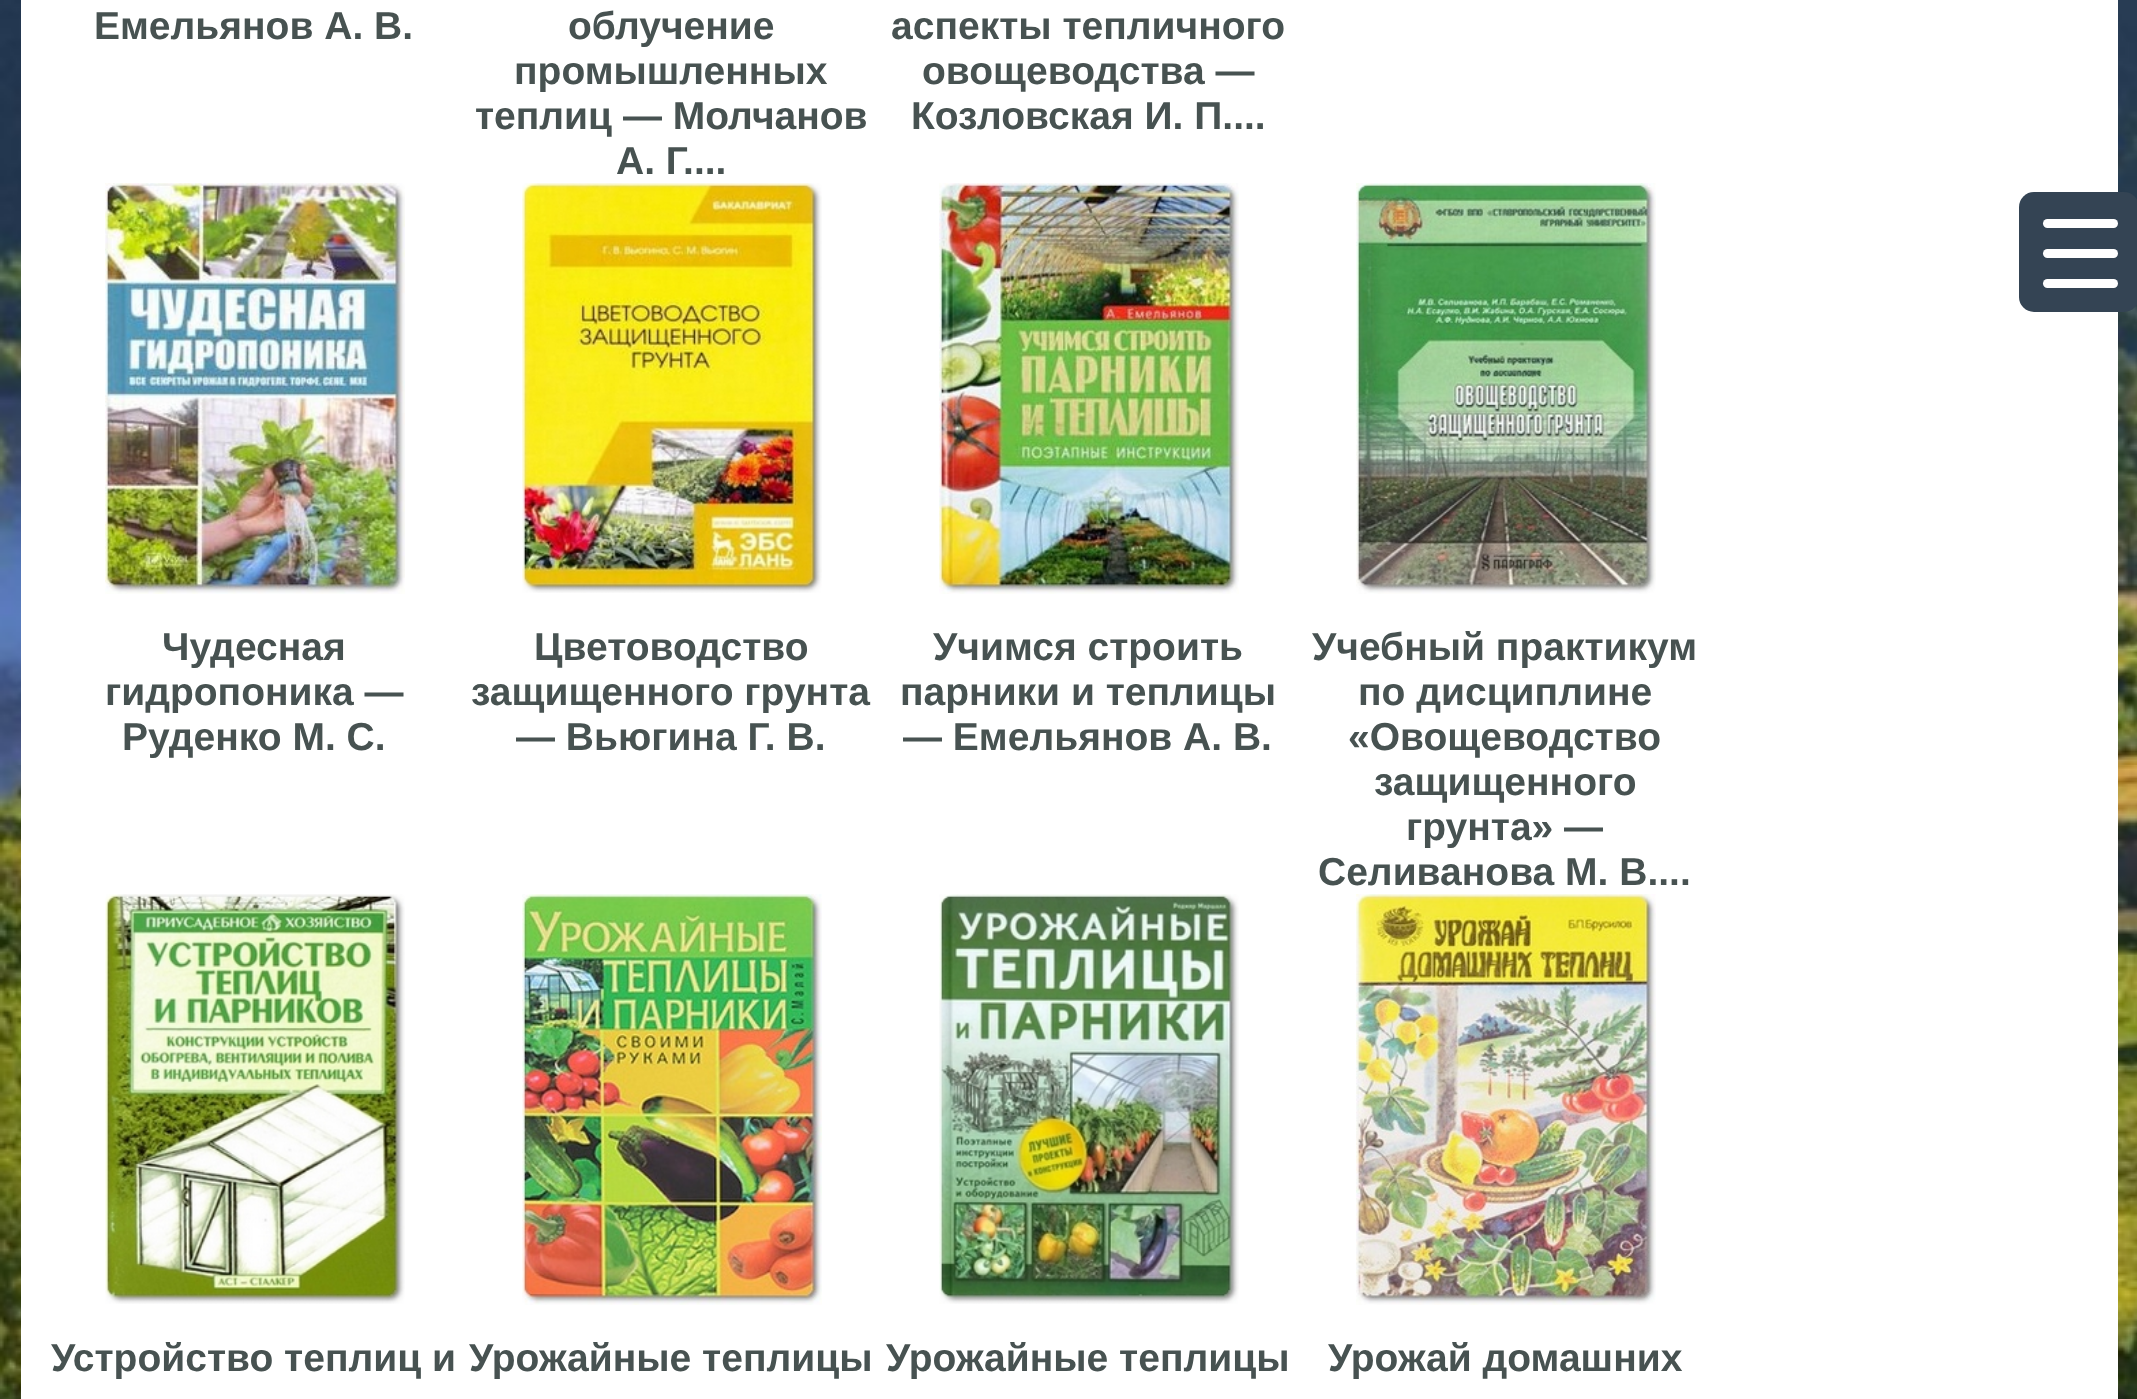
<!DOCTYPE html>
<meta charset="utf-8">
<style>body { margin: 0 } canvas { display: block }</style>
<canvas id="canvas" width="2137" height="1399"></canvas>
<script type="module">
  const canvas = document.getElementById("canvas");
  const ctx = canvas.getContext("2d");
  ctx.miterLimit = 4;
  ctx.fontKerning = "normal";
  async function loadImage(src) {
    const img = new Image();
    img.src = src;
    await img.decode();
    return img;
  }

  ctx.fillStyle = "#ffffff";
  ctx.fillRect(0, 0, 2137, 1399);
  ctx.drawImage(await loadImage("img1.png"), 0, 0, 2137, 1399);
  ctx.fillRect(21, 0, 2097, 1399);
  ctx.font = "bold 39px Liberation Sans";
  ctx.fillStyle = "#475251";
  ctx.fillText("Емельянов А. В.", 94, 39);
  ctx.fillText("облучение", 568, 39);
  ctx.fillText("промышленных", 514, 84);
  ctx.fillText("теплиц — Молчанов", 475, 129);
  ctx.fillText("А. Г....", 616, 174);
  ctx.fillText("аспекты тепличного", 891, 39);
  ctx.fillText("овощеводства —", 922, 84);
  ctx.fillText("Козловская И. П....", 911, 129);
  ctx.drawImage(await loadImage("img2.png"), 105, 183, 300, 411);
  ctx.fillText("Чудесная", 162, 660);
  ctx.fillText("гидропоника —", 105, 705);
  ctx.fillText("Руденко М. С.", 122, 750);
  ctx.drawImage(await loadImage("img3.png"), 522, 183, 300, 410);
  ctx.fillText("Цветоводство", 534, 660);
  ctx.fillText("защищенного грунта", 471, 705);
  ctx.fillText("— Вьюгина Г. В.", 516, 750);
  ctx.drawImage(await loadImage("img4.png"), 939, 183, 300, 411);
  ctx.fillText("Учимся строить", 933, 660);
  ctx.fillText("парники и теплицы", 900, 705);
  ctx.fillText("— Емельянов А. В.", 903, 750);
  ctx.drawImage(await loadImage("img5.png"), 1356, 183, 300, 411);
  ctx.fillText("Учебный практикум", 1312, 660);
  ctx.fillText("по дисциплине", 1358, 705);
  ctx.fillText("«Овощеводство", 1348, 750);
  ctx.fillText("защищенного", 1374, 795);
  ctx.fillText("грунта» —", 1406, 840);
  ctx.fillText("Селиванова М. В....", 1318, 885);
  ctx.drawImage(await loadImage("img6.png"), 105, 894, 300, 410);
  ctx.fillText("Устройство теплиц и", 51, 1371);
  ctx.drawImage(await loadImage("img7.png"), 522, 894, 300, 411);
  ctx.fillText("Урожайные теплицы", 469, 1371);
  ctx.drawImage(await loadImage("img8.png"), 939, 894, 300, 410);
  ctx.fillText("Урожайные теплицы", 886, 1371);
  ctx.drawImage(await loadImage("img9.png"), 1356, 894, 300, 411);
  ctx.fillText("Урожай домашних", 1328, 1371);
  ctx.fillStyle = "#344454";
  ctx.beginPath();
  ctx.roundRect(2019, 192, 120, 120, 15);
  ctx.fill();
  ctx.fillStyle = "#ffffff";
  ctx.beginPath();
  ctx.roundRect(2043, 249, 75, 9, 4.5);
  ctx.fill();
  ctx.beginPath();
  ctx.roundRect(2043, 219, 75, 9, 4.5);
  ctx.fill();
  ctx.beginPath();
  ctx.roundRect(2043, 279, 75, 9, 4.5);
  ctx.fill();
</script>
